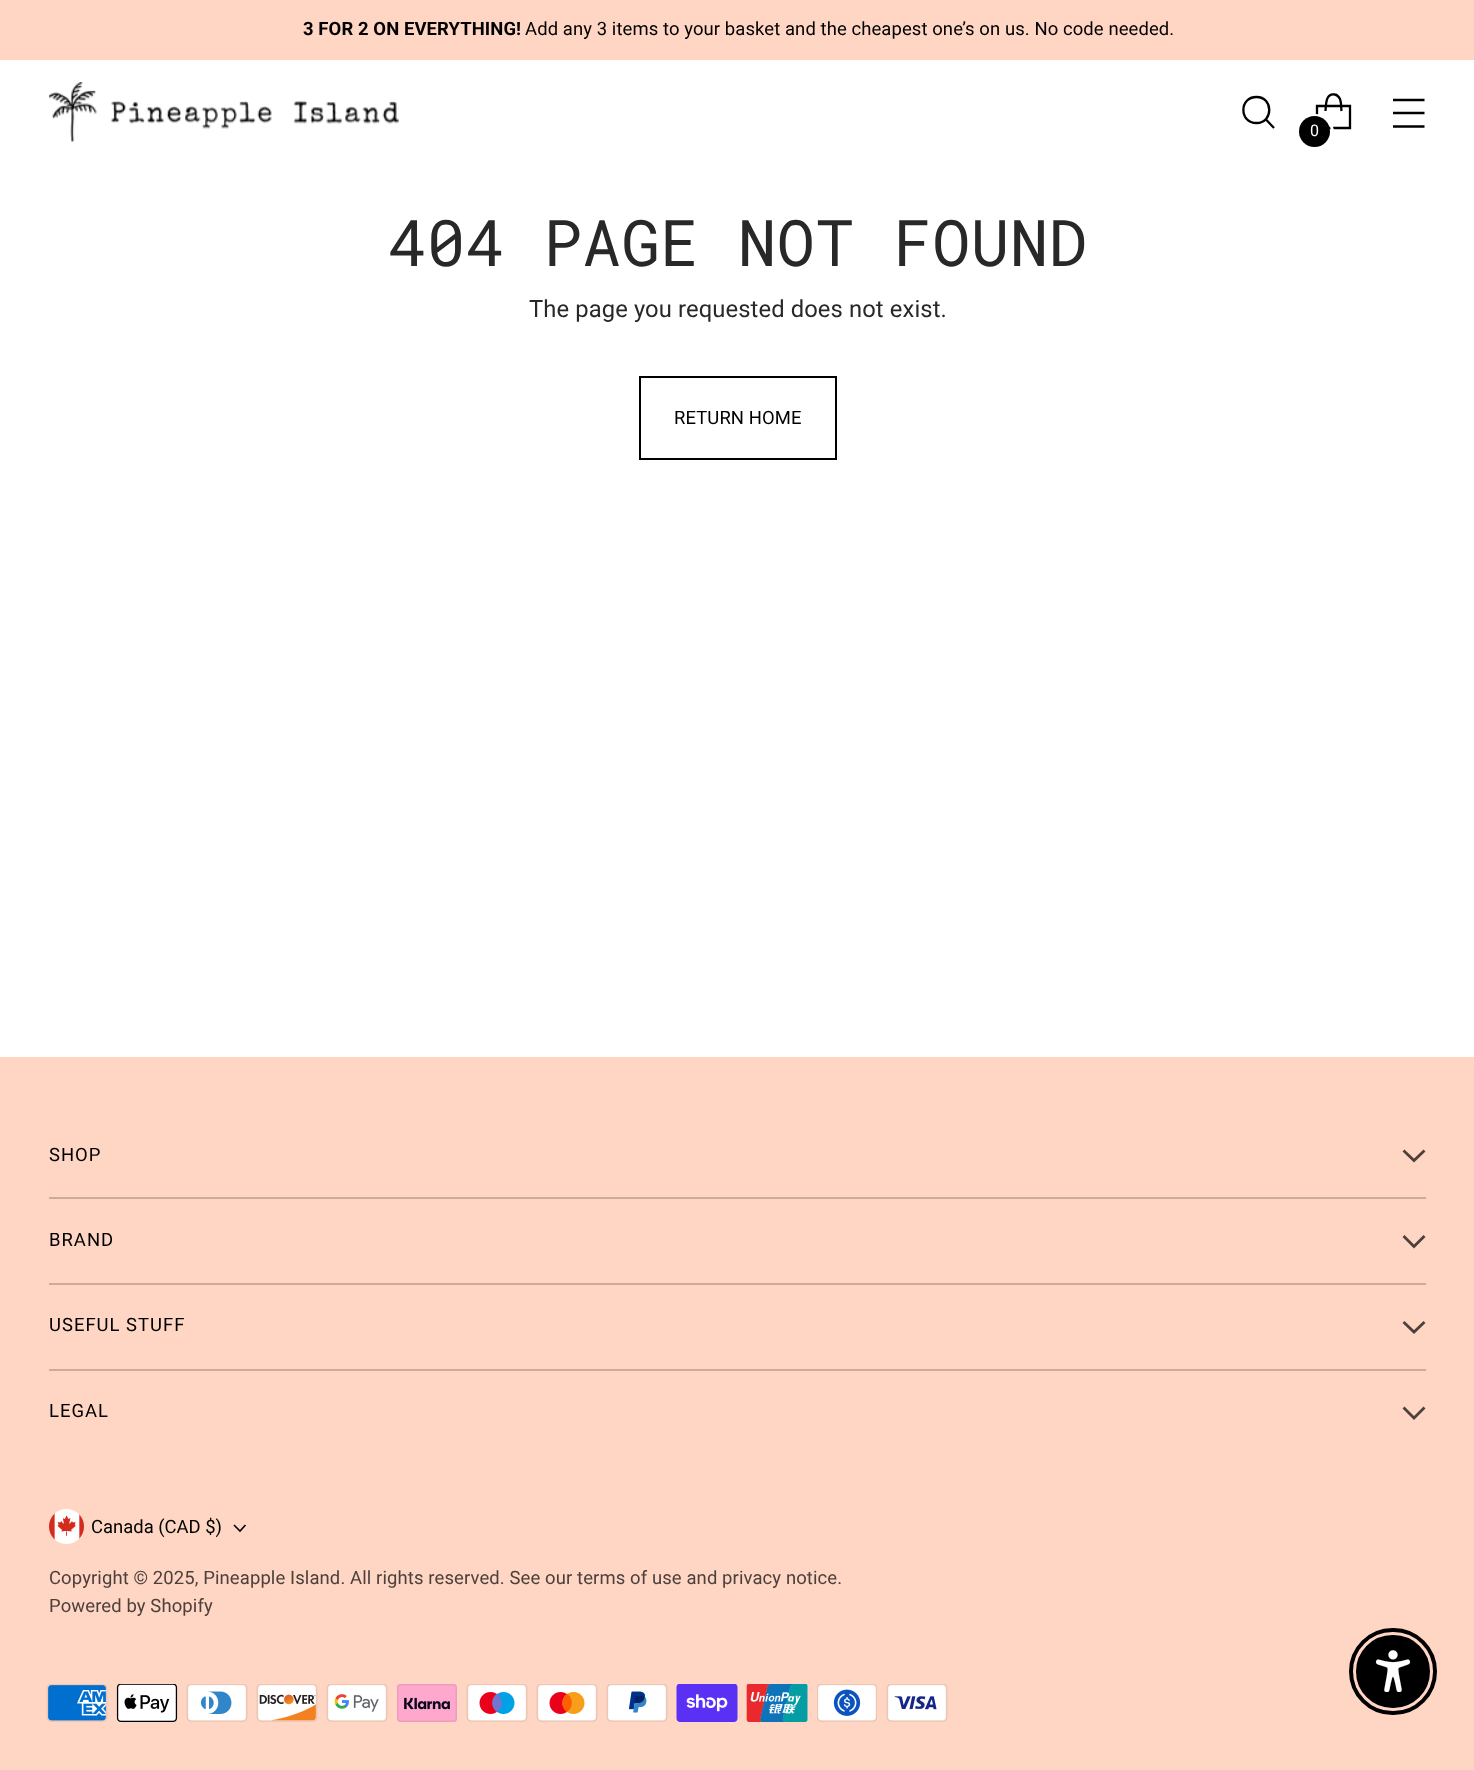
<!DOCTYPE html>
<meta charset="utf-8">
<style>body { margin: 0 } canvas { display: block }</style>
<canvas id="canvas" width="1474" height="1770"></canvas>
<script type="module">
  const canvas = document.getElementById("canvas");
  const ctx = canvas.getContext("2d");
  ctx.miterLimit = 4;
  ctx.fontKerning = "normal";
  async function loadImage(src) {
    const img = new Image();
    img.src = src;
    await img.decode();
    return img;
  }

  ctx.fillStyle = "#ffffff";
  ctx.fillRect(0, 0, 1474, 1770);
  ctx.fillStyle = "#ffd6c4";
  ctx.fillRect(0, 0, 1474, 60);
  ctx.letterSpacing = "0.1px";
  ctx.font = "bold 18.45px Roboto";
  ctx.fillStyle = "#000000";
  ctx.fillText("3 FOR 2 ON EVERYTHING!", 303, 35);
  ctx.font = "18.45px Roboto";
  ctx.fillText("Add any 3 items to your basket and the cheapest one’s on us. No code needed.", 525, 35);
  ctx.drawImage(await loadImage("img1.png"), 49, 82, 350, 60);
  ctx.beginPath();
  ctx.moveTo(1256.5, 123);
  ctx.bezierCurveTo(1273.5, 123, 1273.5, 97, 1256.5, 97);
  ctx.bezierCurveTo(1239, 97, 1239, 123, 1256.5, 123);
  ctx.closePath();
  ctx.strokeStyle = "#000000";
  ctx.lineWidth = 2.3;
  ctx.lineCap = "round";
  ctx.stroke();
  ctx.beginPath();
  ctx.moveTo(1266, 119.5);
  ctx.lineTo(1274, 128);
  ctx.lineCap = "butt";
  ctx.stroke();
  ctx.beginPath();
  ctx.moveTo(1393, 113);
  ctx.lineTo(1424.5, 113);
  ctx.moveTo(1393, 100);
  ctx.lineTo(1424.5, 100);
  ctx.moveTo(1393, 126.5);
  ctx.lineTo(1424.5, 126.5);
  ctx.stroke();
  ctx.beginPath();
  ctx.moveTo(1341.5, 111);
  ctx.bezierCurveTo(1341, 107, 1341.5, 103, 1340, 99);
  ctx.bezierCurveTo(1339, 97, 1337.5, 95, 1335, 94.5);
  ctx.bezierCurveTo(1325.5, 92.5, 1326, 105, 1325.5, 111);
  ctx.lineJoin = "bevel";
  ctx.stroke();
  ctx.beginPath();
  ctx.moveTo(1350, 128);
  ctx.lineTo(1350, 106);
  ctx.lineTo(1317, 106);
  ctx.lineTo(1317, 128);
  ctx.closePath();
  ctx.lineJoin = "miter";
  ctx.stroke();
  ctx.beginPath();
  ctx.arc(1315.5, 132.5, 17, 0, Math.PI * 2);
  ctx.strokeStyle = "#ffffff";
  ctx.lineWidth = 3;
  ctx.stroke();
  ctx.beginPath();
  ctx.arc(1314.5, 131.5, 15.5, 0, Math.PI * 2);
  ctx.fill();
  ctx.letterSpacing = "0.12px";
  ctx.font = "16px Roboto";
  ctx.fillStyle = "#ffffff";
  ctx.fillText("0", 1310, 136);
  ctx.letterSpacing = "0.3px";
  ctx.font = "64.25px Roboto Mono";
  ctx.fillStyle = "#282828";
  ctx.fillText("404 PAGE NOT FOUND", 388, 266);
  ctx.letterSpacing = "0.12px";
  ctx.font = "23.75px Roboto";
  ctx.fillText("The page you requested does not exist.", 529, 317);
  ctx.strokeStyle = "#000000";
  ctx.lineWidth = 2;
  ctx.strokeRect(640, 377, 196, 82);
  ctx.letterSpacing = "0.1px";
  ctx.font = "18.45px Roboto";
  ctx.fillStyle = "#000000";
  ctx.fillText("RETURN HOME", 674, 424);
  ctx.fillStyle = "#ffd6c4";
  ctx.fillRect(0, 1057, 1474, 713);
  ctx.fillStyle = "#ccab9d";
  ctx.fillRect(49, 1197, 1377, 2);
  ctx.letterSpacing = "1px";
  ctx.fillStyle = "#000000";
  ctx.fillText("SHOP", 49, 1161);
  ctx.beginPath();
  ctx.moveTo(1403.5, 1150.5);
  ctx.lineTo(1414, 1160.5);
  ctx.lineTo(1424.5, 1150.5);
  ctx.strokeStyle = "#4d403b";
  ctx.lineWidth = 2.8;
  ctx.stroke();
  ctx.fillStyle = "#ccab9d";
  ctx.fillRect(49, 1283, 1377, 2);
  ctx.fillStyle = "#000000";
  ctx.fillText("BRAND", 49, 1246);
  ctx.beginPath();
  ctx.moveTo(1403.5, 1236);
  ctx.lineTo(1414, 1246.5);
  ctx.lineTo(1424.5, 1236);
  ctx.stroke();
  ctx.fillStyle = "#ccab9d";
  ctx.fillRect(49, 1369, 1377, 2);
  ctx.fillStyle = "#000000";
  ctx.fillText("USEFUL STUFF", 49, 1331);
  ctx.beginPath();
  ctx.moveTo(1403.5, 1322);
  ctx.lineTo(1414, 1332);
  ctx.lineTo(1424.5, 1322);
  ctx.stroke();
  ctx.fillText("LEGAL", 49, 1417);
  ctx.beginPath();
  ctx.moveTo(1403.5, 1407.5);
  ctx.lineTo(1414, 1418);
  ctx.lineTo(1424.5, 1407.5);
  ctx.stroke();
  ctx.drawImage(await loadImage("img2.png"), 49, 1509, 35, 35);
  ctx.letterSpacing = "0px";
  ctx.fillText("Canada (CAD $)", 91, 1533);
  ctx.beginPath();
  ctx.moveTo(234, 1525);
  ctx.lineTo(240, 1531);
  ctx.lineTo(245.5, 1525);
  ctx.strokeStyle = "#000000";
  ctx.lineWidth = 1.6;
  ctx.stroke();
  ctx.letterSpacing = "0.12px";
  ctx.fillStyle = "#4d403b";
  ctx.fillText("Copyright © 2025, Pineapple Island. All rights reserved. See our terms of use and privacy notice.", 49, 1584);
  ctx.fillText("Powered by Shopify", 49, 1612);
  ctx.drawImage(await loadImage("img3.png"), 46, 1684, 62, 38);
  ctx.drawImage(await loadImage("img4.png"), 116, 1684, 62, 38);
  ctx.drawImage(await loadImage("img5.png"), 186, 1684, 62, 38);
  ctx.drawImage(await loadImage("img6.png"), 256, 1684, 62, 38);
  ctx.drawImage(await loadImage("img7.png"), 326, 1684, 62, 38);
  ctx.drawImage(await loadImage("img8.png"), 397, 1684, 60, 38);
  ctx.drawImage(await loadImage("img9.png"), 466, 1684, 62, 38);
  ctx.drawImage(await loadImage("img10.png"), 536, 1684, 62, 38);
  ctx.drawImage(await loadImage("img11.png"), 606, 1684, 62, 38);
  ctx.drawImage(await loadImage("img12.png"), 676, 1684, 62, 38);
  ctx.drawImage(await loadImage("img13.png"), 746, 1684, 62, 38);
  ctx.drawImage(await loadImage("img14.png"), 817, 1684, 60, 38);
  ctx.drawImage(await loadImage("img15.png"), 886, 1684, 62, 38);
  ctx.beginPath();
  ctx.roundRect(1351, 1630, 84, 83, 41.5);
  ctx.lineWidth = 4;
  ctx.stroke();
  ctx.fillStyle = "#000000";
  ctx.beginPath();
  ctx.roundRect(1357, 1636, 72, 71, 35.5);
  ctx.fill();
  ctx.lineWidth = 2;
  ctx.stroke();
  ctx.drawImage(await loadImage("img16.png"), 1375, 1650, 36, 42);
</script>
